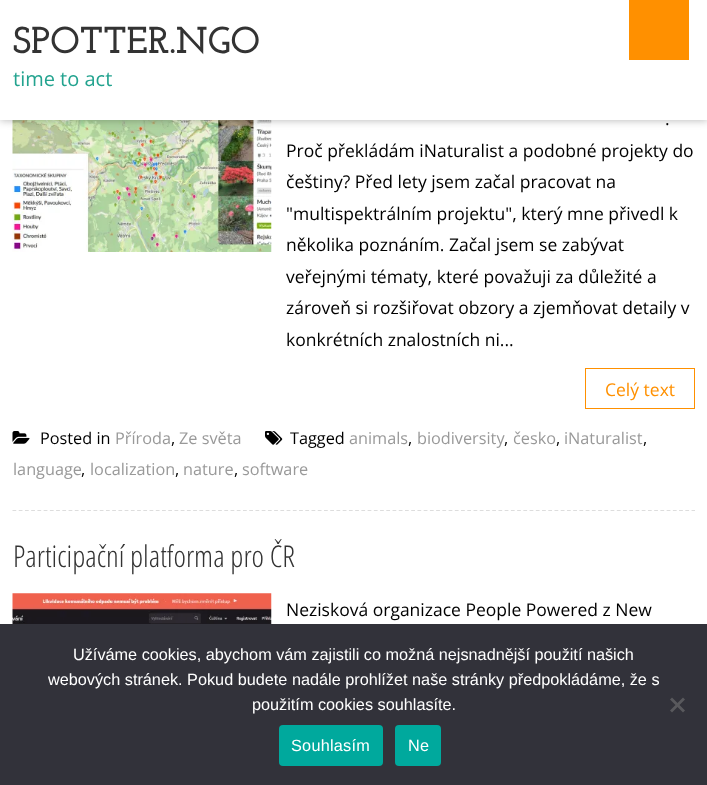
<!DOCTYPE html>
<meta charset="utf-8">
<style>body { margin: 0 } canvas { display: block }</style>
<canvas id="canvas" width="707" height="785"></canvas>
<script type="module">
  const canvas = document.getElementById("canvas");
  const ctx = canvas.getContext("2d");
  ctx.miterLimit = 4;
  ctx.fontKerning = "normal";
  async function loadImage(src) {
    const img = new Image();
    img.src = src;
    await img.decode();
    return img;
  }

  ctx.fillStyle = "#ffffff";
  ctx.fillRect(0, 0, 707, 785);
  ctx.drawImage(await loadImage("img1.png"), 12, 120, 260, 132);
  ctx.fillStyle = "rgba(0, 0, 0, 0.3)";
  ctx.filter = "blur(4px)";
  ctx.beginPath();
  ctx.rect(0, 0, 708, 120);
  ctx.fill();
  ctx.filter = "none";
  ctx.fillStyle = "#ffffff";
  ctx.fillRect(0, 0, 707, 120);
  ctx.font = "bold 37.5px Josefin Slab";
  ctx.fillStyle = "#333333";
  ctx.fillText("SPOTTER.NGO", 13, 53);
  ctx.font = "20px Open Sans";
  ctx.fillStyle = "#23a38f";
  ctx.fillText("time to act", 13, 86);
  ctx.fillStyle = "#ff9000";
  ctx.fillRect(629, 0, 60, 60);
  ctx.beginPath();
  ctx.moveTo(12.5, 510.5);
  ctx.lineTo(695, 510.5);
  ctx.strokeStyle = "#dddddd";
  ctx.lineWidth = 1.2;
  ctx.setLineDash([3.75, 2.48]);
  ctx.stroke();
  ctx.font = "17.5px Open Sans";
  ctx.fillStyle = "#000000";
  ctx.fillText(".", 665, 125);
  ctx.fillText("Proč překládám iNaturalist a podobné projekty do", 286, 157);
  ctx.fillText("češtiny? Před lety jsem začal pracovat na", 286, 188);
  ctx.fillText("\"multispektrálním projektu\", který mne přivedl k", 286, 220);
  ctx.fillText("několika poznáním. Začal jsem se zabývat", 286, 251);
  ctx.fillText("veřejnými tématy, které považuji za důležité a", 286, 283);
  ctx.fillText("zároveň si rozšiřovat obzory a zjemňovat detaily v", 286, 314);
  ctx.fillText("konkrétních znalostních ni...", 286, 346);
  ctx.strokeStyle = "#ff9000";
  ctx.lineWidth = 1;
  ctx.setLineDash([]);
  ctx.strokeRect(585.5, 368.5, 109, 40);
  ctx.fillStyle = "#ff9000";
  ctx.fillText("Celý text", 605, 396);
  ctx.drawImage(await loadImage("img2.png"), 12, 431, 18, 13);
  ctx.font = "16.25px Open Sans";
  ctx.fillStyle = "#000000";
  ctx.fillText("Posted in", 40, 444);
  ctx.fillStyle = "#999999";
  ctx.fillText("Příroda", 115, 444);
  ctx.fillStyle = "#000000";
  ctx.fillText(",", 171, 444);
  ctx.fillStyle = "#999999";
  ctx.fillText("Ze světa", 179, 444);
  ctx.drawImage(await loadImage("img3.png"), 265, 431, 18, 14);
  ctx.fillStyle = "#000000";
  ctx.fillText("Tagged", 290, 444);
  ctx.fillStyle = "#999999";
  ctx.fillText("animals", 349, 444);
  ctx.fillStyle = "#000000";
  ctx.fillText(",", 408, 444);
  ctx.fillStyle = "#999999";
  ctx.fillText("biodiversity", 417, 444);
  ctx.fillStyle = "#000000";
  ctx.fillText(",", 504, 444);
  ctx.fillStyle = "#999999";
  ctx.fillText("česko", 513, 444);
  ctx.fillStyle = "#000000";
  ctx.fillText(",", 556, 444);
  ctx.fillStyle = "#999999";
  ctx.fillText("iNaturalist", 564, 444);
  ctx.fillStyle = "#000000";
  ctx.fillText(",", 643, 444);
  ctx.fillStyle = "#999999";
  ctx.fillText("language", 13, 475);
  ctx.fillStyle = "#000000";
  ctx.fillText(",", 81, 475);
  ctx.fillStyle = "#999999";
  ctx.fillText("localization", 90, 475);
  ctx.fillStyle = "#000000";
  ctx.fillText(",", 175, 475);
  ctx.fillStyle = "#999999";
  ctx.fillText("nature", 183, 475);
  ctx.fillStyle = "#000000";
  ctx.fillText(",", 234, 475);
  ctx.fillStyle = "#999999";
  ctx.fillText("software", 242, 475);
  ctx.font = "300 30px Open Sans Condensed";
  ctx.fillStyle = "#333333";
  ctx.fillText("Participační platforma pro ČR", 13, 567);
  ctx.drawImage(await loadImage("img4.png"), 12, 593, 260, 31);
  ctx.font = "17.5px Open Sans";
  ctx.fillStyle = "#000000";
  ctx.fillText("Nezisková organizace People Powered z New", 286, 616);
  ctx.fillStyle = "#32323a";
  ctx.fillRect(0, 624, 707, 161);
  ctx.font = "16.25px Liberation Sans";
  ctx.fillStyle = "#ffffff";
  ctx.fillText("Užíváme cookies, abychom vám zajistili co možná nejsnadnější použití našich", 73, 660);
  ctx.fillText("webových stránek. Pokud budete nadále prohlížet naše stránky předpokládáme, že s", 48, 685);
  ctx.fillText("použitím cookies souhlasíte.", 252, 710);
  ctx.fillStyle = "#59595d";
  ctx.beginPath();
  ctx.moveTo(683, 697.5);
  ctx.lineTo(685, 699.5);
  ctx.lineTo(672, 712.5);
  ctx.lineTo(670, 710.5);
  ctx.closePath();
  ctx.fill();
  ctx.beginPath();
  ctx.moveTo(670, 699.5);
  ctx.lineTo(672, 697.5);
  ctx.lineTo(685, 710.5);
  ctx.lineTo(683, 712.5);
  ctx.closePath();
  ctx.fill();
  ctx.fillStyle = "#00a99d";
  ctx.beginPath();
  ctx.roundRect(279, 725, 104, 41, 4);
  ctx.fill();
  ctx.letterSpacing = "0.25px";
  ctx.fillStyle = "#ffffff";
  ctx.fillText("Souhlasím", 291, 751);
  ctx.fillStyle = "#00a99d";
  ctx.beginPath();
  ctx.roundRect(395, 725, 46, 41, 4);
  ctx.fill();
  ctx.fillStyle = "#ffffff";
  ctx.fillText("Ne", 408, 751);
</script>
